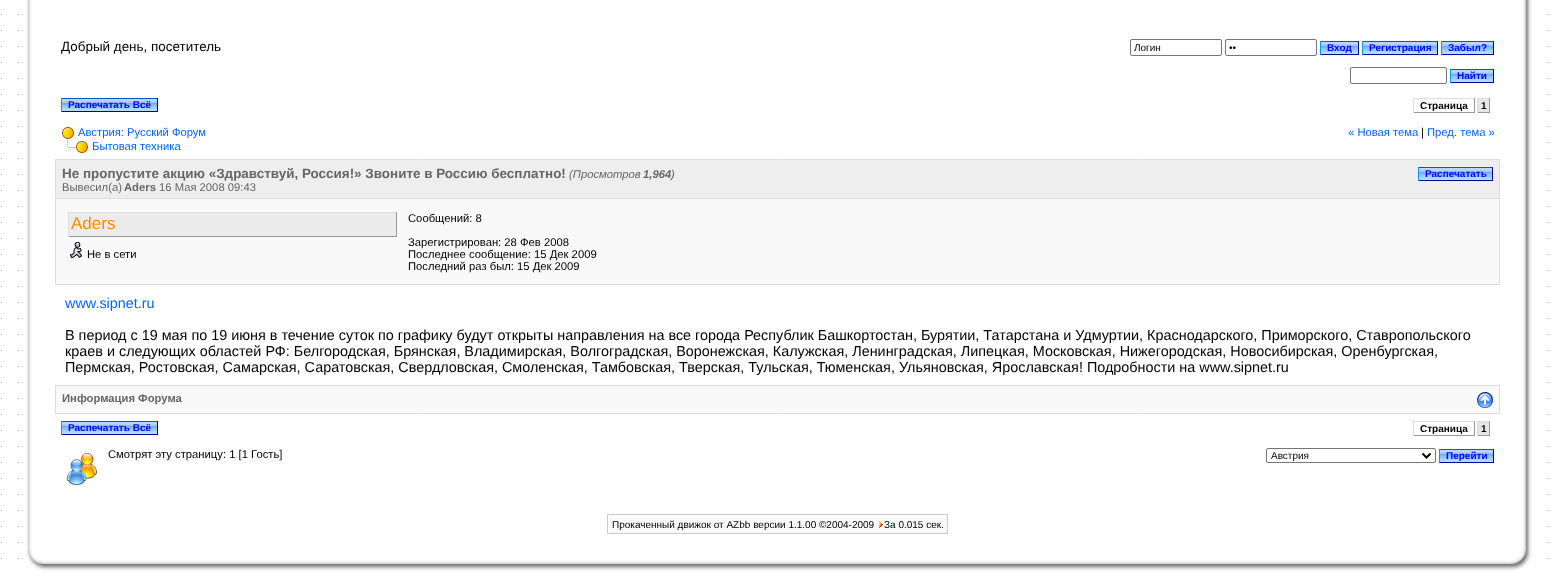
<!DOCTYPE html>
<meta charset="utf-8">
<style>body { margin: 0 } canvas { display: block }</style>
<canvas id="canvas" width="1555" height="573"></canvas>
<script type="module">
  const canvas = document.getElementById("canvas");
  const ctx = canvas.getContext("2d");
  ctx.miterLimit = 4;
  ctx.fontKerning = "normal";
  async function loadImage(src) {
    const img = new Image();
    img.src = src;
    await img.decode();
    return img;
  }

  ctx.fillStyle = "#ffffff";
  ctx.fillRect(0, 0, 1555, 573);
  ctx.drawImage(await loadImage("img1.png"), 1, 14, 1548, 545);
  ctx.drawImage(await loadImage("img2.png"), 26, 0, 10, 546);
  ctx.fillRect(52, 14, 1480, 529);
  ctx.drawImage(await loadImage("img3.png"), 1523, 0, 9, 546);
  ctx.font = "13.45px Liberation Sans";
  ctx.fillStyle = "#000000";
  ctx.fillText("Добрый день, посетитель", 61, 51);
  ctx.beginPath();
  ctx.roundRect(1130.5, 39.5, 91, 16, 1.5);
  ctx.strokeStyle = "#767676";
  ctx.stroke();
  ctx.font = "10px Liberation Sans";
  ctx.fillText("Логин", 1134, 51);
  ctx.beginPath();
  ctx.roundRect(1225.5, 39.5, 91, 16, 1.5);
  ctx.stroke();
  ctx.fillText("••", 1229, 51);
  ctx.drawImage(await loadImage("img4.png"), 1321, 41, 37, 13);
  ctx.fillStyle = "#000099";
  ctx.fillRect(1358, 41, 1, 14);
  ctx.fillRect(1320, 54, 39, 1);
  ctx.fillStyle = "#0099ff";
  ctx.fillRect(1320, 41, 1, 14);
  ctx.font = "bold 10px Liberation Sans";
  ctx.fillStyle = "#0000ff";
  ctx.fillText("Вход", 1327, 51);
  ctx.drawImage(await loadImage("img5.png"), 1363, 41, 74, 13);
  ctx.fillStyle = "#000099";
  ctx.fillRect(1437, 41, 1, 14);
  ctx.fillRect(1362, 54, 76, 1);
  ctx.fillStyle = "#0099ff";
  ctx.fillRect(1362, 41, 1, 14);
  ctx.fillStyle = "#0000ff";
  ctx.fillText("Регистрация", 1369, 51);
  ctx.drawImage(await loadImage("img6.png"), 1442, 41, 51, 13);
  ctx.fillStyle = "#000099";
  ctx.fillRect(1493, 41, 1, 14);
  ctx.fillRect(1441, 54, 53, 1);
  ctx.fillStyle = "#0099ff";
  ctx.fillRect(1441, 41, 1, 14);
  ctx.fillStyle = "#0000ff";
  ctx.fillText("Забыл?", 1448, 51);
  ctx.beginPath();
  ctx.roundRect(1350.5, 67.5, 96, 16, 1.5);
  ctx.stroke();
  ctx.drawImage(await loadImage("img7.png"), 1451, 69, 42, 13);
  ctx.fillStyle = "#000099";
  ctx.fillRect(1493, 69, 1, 14);
  ctx.fillRect(1450, 82, 44, 1);
  ctx.fillStyle = "#0099ff";
  ctx.fillRect(1450, 69, 1, 14);
  ctx.fillStyle = "#0000ff";
  ctx.fillText("Найти", 1457, 79);
  ctx.drawImage(await loadImage("img8.png"), 62, 98, 95, 13);
  ctx.fillStyle = "#000099";
  ctx.fillRect(157, 98, 1, 14);
  ctx.fillRect(61, 111, 97, 1);
  ctx.fillStyle = "#0099ff";
  ctx.fillRect(61, 98, 1, 14);
  ctx.fillStyle = "#0000ff";
  ctx.fillText("Распечатать Всё", 68, 108);
  ctx.fillStyle = "#000000";
  ctx.fillText("Страница", 1420, 109);
  ctx.fillStyle = "#dddddd";
  ctx.fillRect(1413, 98, 62, 1);
  ctx.fillStyle = "#999999";
  ctx.fillRect(1474, 98, 1, 15);
  ctx.fillRect(1413, 112, 62, 1);
  ctx.fillStyle = "#dddddd";
  ctx.fillRect(1413, 98, 1, 15);
  ctx.fillStyle = "#e6e6e6";
  ctx.fillRect(1478, 99, 11, 13);
  ctx.fillStyle = "#000000";
  ctx.fillText("1", 1481, 109);
  ctx.fillStyle = "#dddddd";
  ctx.fillRect(1477, 98, 13, 1);
  ctx.fillStyle = "#999999";
  ctx.fillRect(1489, 98, 1, 15);
  ctx.fillRect(1477, 112, 13, 1);
  ctx.fillStyle = "#dddddd";
  ctx.fillRect(1477, 98, 1, 15);
  ctx.drawImage(await loadImage("img9.png"), 62, 127, 12, 12);
  ctx.font = "11.25px Liberation Sans";
  ctx.fillStyle = "#0066ff";
  ctx.fillText("Австрия: Русский Форум", 78, 136);
  ctx.fillText("« Новая тема", 1348, 136);
  ctx.fillStyle = "#000000";
  ctx.fillText("|", 1421, 136);
  ctx.fillStyle = "#0066ff";
  ctx.fillText("Пред. тема »", 1427, 136);
  ctx.drawImage(await loadImage("img10.png"), 67, 140, 21, 13);
  ctx.fillText("Бытовая техника", 92, 150);
  ctx.fillStyle = "#eeeeee";
  ctx.beginPath();
  ctx.rect(55.5, 159.5, 1444, 39);
  ctx.fill();
  ctx.strokeStyle = "#dddddd";
  ctx.stroke();
  ctx.font = "bold 13.45px Liberation Sans";
  ctx.fillStyle = "#666666";
  ctx.fillText("Не пропустите акцию «Здравствуй, Россия!» Звоните в Россию бесплатно!", 62, 178);
  ctx.font = "italic 11.25px Liberation Sans";
  ctx.fillText("(Просмотров", 569, 178);
  ctx.font = "italic bold 11.25px Liberation Sans";
  ctx.fillText("1,964", 643, 178);
  ctx.font = "italic 11.25px Liberation Sans";
  ctx.fillText(")", 671, 178);
  ctx.drawImage(await loadImage("img11.png"), 1419, 167, 73, 13);
  ctx.fillStyle = "#000099";
  ctx.fillRect(1492, 167, 1, 14);
  ctx.fillRect(1418, 180, 75, 1);
  ctx.fillStyle = "#0099ff";
  ctx.fillRect(1418, 167, 1, 14);
  ctx.font = "bold 10px Liberation Sans";
  ctx.fillStyle = "#0000ff";
  ctx.fillText("Распечатать", 1425, 177);
  ctx.font = "11.25px Liberation Sans";
  ctx.fillStyle = "#666666";
  ctx.fillText("Вывесил(a)", 62, 191);
  ctx.font = "bold 11.25px Liberation Sans";
  ctx.fillText("Aders", 124, 191);
  ctx.font = "11.25px Liberation Sans";
  ctx.fillText("16 Мая 2008 09:43", 159, 191);
  ctx.fillStyle = "#f9f9f9";
  ctx.fillRect(56, 199, 1443, 85);
  ctx.fillStyle = "#dddddd";
  ctx.fillRect(1499, 199, 1, 86);
  ctx.fillRect(55, 284, 1445, 1);
  ctx.fillRect(55, 199, 1, 86);
  ctx.fillStyle = "#ececec";
  ctx.fillRect(69, 213, 327, 23);
  ctx.fillStyle = "#dddddd";
  ctx.fillRect(68, 212, 329, 1);
  ctx.fillStyle = "#999999";
  ctx.fillRect(396, 212, 1, 25);
  ctx.fillRect(68, 236, 329, 1);
  ctx.fillStyle = "#dddddd";
  ctx.fillRect(68, 212, 1, 25);
  ctx.font = "17px Liberation Sans";
  ctx.fillStyle = "#ff8c00";
  ctx.fillText("Aders", 71, 229);
  ctx.drawImage(await loadImage("img12.png"), 70, 242, 12, 16);
  ctx.font = "11.25px Liberation Sans";
  ctx.fillStyle = "#000000";
  ctx.fillText("Не в сети", 87, 258);
  ctx.fillText("Сообщений: 8", 408, 222);
  ctx.fillText("Зарегистрирован: 28 Фев 2008", 408, 246);
  ctx.fillText("Последнее сообщение: 15 Дек 2009", 408, 258);
  ctx.fillText("Последний раз был: 15 Дек 2009", 408, 270);
  ctx.font = "14.4px Liberation Sans";
  ctx.fillStyle = "#0066ff";
  ctx.fillText("www.sipnet.ru", 65, 308);
  ctx.fillStyle = "#000000";
  ctx.fillText("В период с 19 мая по 19 июня в течение суток по графику будут открыты направления на все города Республик Башкортостан, Бурятии, Татарстана и Удмуртии, Краснодарского, Приморского, Ставропольского", 65, 340);
  ctx.fillText("краев и следующих областей РФ: Белгородская, Брянская, Владимирская, Волгоградская, Воронежская, Калужская, Ленинградская, Липецкая, Московская, Нижегородская, Новосибирская, Оренбургская,", 65, 356);
  ctx.fillText("Пермская, Ростовская, Самарская, Саратовская, Свердловская, Смоленская, Тамбовская, Тверская, Тульская, Тюменская, Ульяновская, Ярославская! Подробности на www.sipnet.ru", 65, 372);
  ctx.fillStyle = "#f9f9f9";
  ctx.beginPath();
  ctx.rect(55.5, 385.5, 1444, 28);
  ctx.fill();
  ctx.stroke();
  ctx.font = "bold 11.25px Liberation Sans";
  ctx.fillStyle = "#666666";
  ctx.fillText("Информация Форума", 62, 402);
  ctx.drawImage(await loadImage("img13.png"), 1477, 392, 16, 16);
  ctx.drawImage(await loadImage("img8.png"), 62, 421, 95, 13);
  ctx.fillStyle = "#000099";
  ctx.fillRect(157, 421, 1, 14);
  ctx.fillRect(61, 434, 97, 1);
  ctx.fillStyle = "#0099ff";
  ctx.fillRect(61, 421, 1, 14);
  ctx.font = "bold 10px Liberation Sans";
  ctx.fillStyle = "#0000ff";
  ctx.fillText("Распечатать Всё", 68, 431);
  ctx.fillStyle = "#000000";
  ctx.fillText("Страница", 1420, 432);
  ctx.fillStyle = "#dddddd";
  ctx.fillRect(1413, 421, 62, 1);
  ctx.fillStyle = "#999999";
  ctx.fillRect(1474, 421, 1, 15);
  ctx.fillRect(1413, 435, 62, 1);
  ctx.fillStyle = "#dddddd";
  ctx.fillRect(1413, 421, 1, 15);
  ctx.fillStyle = "#e6e6e6";
  ctx.fillRect(1478, 422, 11, 13);
  ctx.fillStyle = "#000000";
  ctx.fillText("1", 1481, 432);
  ctx.fillStyle = "#dddddd";
  ctx.fillRect(1477, 421, 13, 1);
  ctx.fillStyle = "#999999";
  ctx.fillRect(1489, 421, 1, 15);
  ctx.fillRect(1477, 435, 13, 1);
  ctx.fillStyle = "#dddddd";
  ctx.fillRect(1477, 421, 1, 15);
  ctx.drawImage(await loadImage("img14.png"), 66, 453, 32, 32);
  ctx.font = "11.25px Liberation Sans";
  ctx.fillStyle = "#000000";
  ctx.fillText("Смотрят эту страницу: 1 [1 Гость]", 108, 458);
  ctx.beginPath();
  ctx.roundRect(1266.5, 448.5, 169, 14, 1.5);
  ctx.strokeStyle = "#767676";
  ctx.stroke();
  ctx.beginPath();
  ctx.moveTo(1422.5, 453.5);
  ctx.lineTo(1426.5, 457.5);
  ctx.lineTo(1430.5, 453.5);
  ctx.strokeStyle = "#000000";
  ctx.lineWidth = 2;
  ctx.stroke();
  ctx.font = "10px Liberation Sans";
  ctx.fillText("Австрия", 1271, 459);
  ctx.drawImage(await loadImage("img15.png"), 1440, 449, 53, 13);
  ctx.fillStyle = "#000099";
  ctx.fillRect(1493, 449, 1, 14);
  ctx.fillRect(1439, 462, 55, 1);
  ctx.fillStyle = "#0099ff";
  ctx.fillRect(1439, 449, 1, 14);
  ctx.font = "bold 10px Liberation Sans";
  ctx.fillStyle = "#0000ff";
  ctx.fillText("Перейти", 1446, 459);
  ctx.fillStyle = "#cccccc";
  ctx.fillRect(607, 514, 341, 20);
  ctx.fillStyle = "#f9f9f9";
  ctx.fillRect(609, 516, 338, 17);
  ctx.fillStyle = "#ffffff";
  ctx.fillRect(608, 515, 339, 1);
  ctx.fillRect(608, 515, 1, 18);
  ctx.font = "10px Liberation Sans";
  ctx.fillStyle = "#000000";
  ctx.fillText("Прокаченный движок от AZbb версии 1.1.00 ©2004-2009", 612, 528);
  ctx.drawImage(await loadImage("img16.png"), 879, 521, 4, 7);
  ctx.fillText("За 0.015 сек.", 884, 528);
  ctx.drawImage(await loadImage("img17.png"), 44, 558, 1467, 13);
  ctx.drawImage(await loadImage("img18.png"), 20, 546, 24, 25);
  ctx.drawImage(await loadImage("img19.png"), 1511, 546, 24, 25);
</script>
